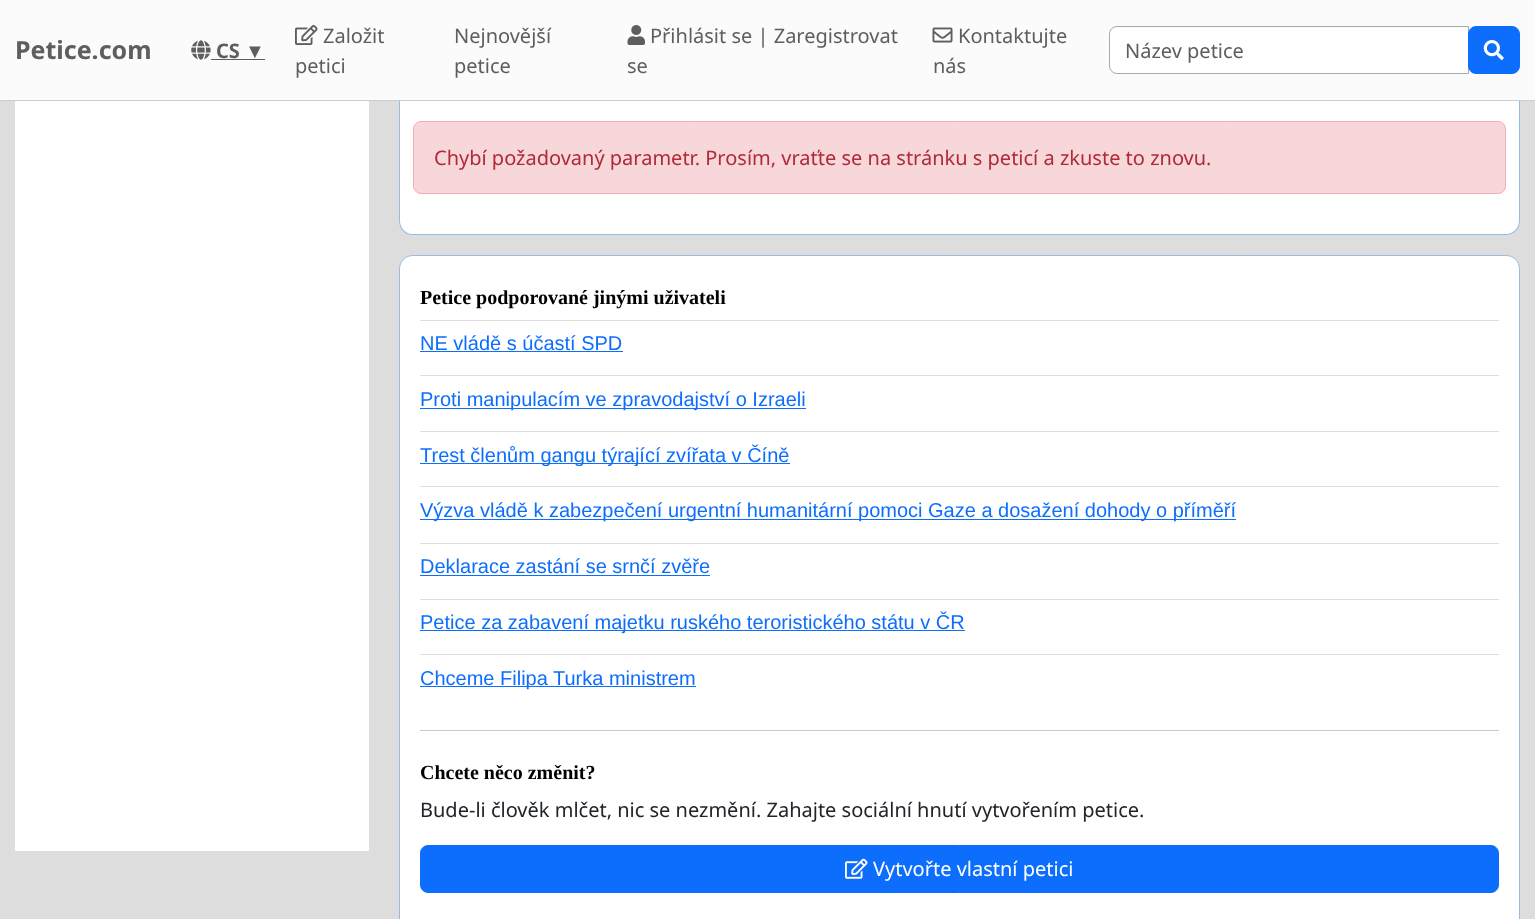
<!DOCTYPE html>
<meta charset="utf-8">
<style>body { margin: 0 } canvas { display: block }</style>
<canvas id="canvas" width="1535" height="919"></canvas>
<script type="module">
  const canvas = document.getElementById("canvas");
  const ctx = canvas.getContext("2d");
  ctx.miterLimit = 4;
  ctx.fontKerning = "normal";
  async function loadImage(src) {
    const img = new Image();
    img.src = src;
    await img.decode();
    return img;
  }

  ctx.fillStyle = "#dddddd";
  ctx.fillRect(0, 0, 1535, 919);
  ctx.fillStyle = "#fbfbfb";
  ctx.fillRect(0, 0, 1535, 100);
  ctx.fillStyle = "#cccccc";
  ctx.fillRect(0, 100, 1535, 1);
  ctx.font = "bold 25px Noto Sans";
  ctx.fillStyle = "#5e5e5e";
  ctx.fillText("Petice.com", 15, 59);
  ctx.drawImage(await loadImage("img1.png"), 191, 40, 20, 20);
  ctx.font = "bold 20px Noto Sans";
  ctx.fillText("CS", 216, 58);
  ctx.fillRect(211, 59, 54, 1);
  ctx.font = "20px Liberation Sans";
  ctx.fillText("▼", 245, 58);
  ctx.drawImage(await loadImage("img2.png"), 295, 25, 23, 20);
  ctx.font = "20px Noto Sans";
  ctx.fillText("Založit", 323, 43);
  ctx.fillText("petici", 295, 73);
  ctx.fillText("Nejnovější", 454, 43);
  ctx.fillText("petice", 454, 73);
  ctx.drawImage(await loadImage("img3.png"), 627, 25, 18, 20);
  ctx.fillText("Přihlásit se | Zaregistrovat", 650, 43);
  ctx.fillText("se", 627, 73);
  ctx.drawImage(await loadImage("img4.png"), 932, 27, 21, 16);
  ctx.fillText("Kontaktujte", 958, 43);
  ctx.fillText("nás", 933, 73);
  ctx.fillStyle = "#ffffff";
  ctx.beginPath();
  ctx.roundRect(1110, 28, 358, 45, [6, 0, 0, 6]);
  ctx.fill();
  ctx.beginPath();
  ctx.roundRect(1109.5, 26.5, 359, 47, [7.5, 0, 0, 7.5]);
  ctx.strokeStyle = "#a9a9a9";
  ctx.stroke();
  ctx.fillStyle = "#5e5e5e";
  ctx.fillText("Název petice", 1125, 58);
  ctx.fillStyle = "#0d6efd";
  ctx.beginPath();
  ctx.roundRect(1468.5, 26.5, 51, 47, 7.5);
  ctx.fill();
  ctx.strokeStyle = "#0d6efd";
  ctx.stroke();
  ctx.drawImage(await loadImage("img5.png"), 1483, 40, 21, 20);
  ctx.fillStyle = "#ffffff";
  ctx.fillRect(15, 101, 354, 750);
  ctx.beginPath();
  ctx.roundRect(399, 101, 1121, 134, [0, 0, 14, 14]);
  ctx.fill();
  ctx.fillStyle = "#95bce2";
  ctx.beginPath();
  ctx.moveTo(399, 101);
  ctx.lineTo(1520, 101);
  ctx.lineTo(1520, 221);
  ctx.bezierCurveTo(1520, 229, 1514, 235, 1506, 235);
  ctx.lineTo(412, 235);
  ctx.bezierCurveTo(405, 235, 399, 229, 399, 221);
  ctx.closePath();
  ctx.moveTo(400, 101);
  ctx.lineTo(1519, 101);
  ctx.lineTo(1519, 221);
  ctx.bezierCurveTo(1519, 228, 1513, 234, 1506, 234);
  ctx.lineTo(412, 234);
  ctx.bezierCurveTo(406, 234, 400, 228, 400, 221);
  ctx.closePath();
  ctx.fill("evenodd");
  ctx.fillStyle = "#f8d7da";
  ctx.beginPath();
  ctx.roundRect(413.5, 121.5, 1092, 72, 7.5);
  ctx.fill();
  ctx.strokeStyle = "#f1aeb5";
  ctx.stroke();
  ctx.fillStyle = "#b02a37";
  ctx.fillText("Chybí požadovaný parametr. Prosím, vraťte se na stránku s peticí a zkuste to znovu.", 434, 165);
  ctx.fillStyle = "#ffffff";
  ctx.beginPath();
  ctx.moveTo(413, 255.5);
  ctx.lineTo(1506, 255.5);
  ctx.bezierCurveTo(1513.5, 255.5, 1519.5, 261.5, 1519.5, 269);
  ctx.lineTo(1519.5, 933.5);
  ctx.lineTo(399.5, 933.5);
  ctx.lineTo(399.5, 269);
  ctx.bezierCurveTo(399.5, 261.5, 405.5, 255.5, 413, 255.5);
  ctx.closePath();
  ctx.fill();
  ctx.strokeStyle = "#95bce2";
  ctx.stroke();
  ctx.font = "bold 20px Liberation Serif";
  ctx.fillStyle = "#000000";
  ctx.fillText("Petice podporované jinými uživateli", 420, 304);
  ctx.fillStyle = "#dddddd";
  ctx.fillRect(420, 320, 1079, 1);
  ctx.font = "20px Liberation Sans";
  ctx.fillStyle = "#0d6efd";
  ctx.fillText("NE vládě s účastí SPD", 420, 350);
  ctx.fillRect(420, 351, 203, 1);
  ctx.fillStyle = "#dddddd";
  ctx.fillRect(420, 375, 1079, 1);
  ctx.fillStyle = "#0d6efd";
  ctx.fillRect(420, 408, 386, 1);
  ctx.fillText("Proti manipulacím ve zpravodajství o Izraeli", 420, 406);
  ctx.fillStyle = "#dddddd";
  ctx.fillRect(420, 431, 1079, 1);
  ctx.fillStyle = "#0d6efd";
  ctx.fillRect(420, 463, 370, 1);
  ctx.save();
  ctx.beginPath();
  ctx.rect(420, 433, 1059, 33);
  ctx.clip();
  ctx.fillText("Trest členům gangu týrající zvířata v Číně", 420, 462);
  ctx.restore();
  ctx.fillStyle = "#dddddd";
  ctx.fillRect(420, 486, 1079, 1);
  ctx.fillStyle = "#0d6efd";
  ctx.fillRect(420, 519, 816, 1);
  ctx.fillText("Výzva vládě k zabezpečení urgentní humanitární pomoci Gaze a dosažení dohody o příměří", 420, 517);
  ctx.fillStyle = "#dddddd";
  ctx.fillRect(420, 543, 1079, 1);
  ctx.fillStyle = "#0d6efd";
  ctx.fillText("Deklarace zastání se srnčí zvěře", 420, 573);
  ctx.fillRect(420, 575, 290, 1);
  ctx.fillStyle = "#dddddd";
  ctx.fillRect(420, 599, 1079, 1);
  ctx.fillStyle = "#0d6efd";
  ctx.fillRect(420, 630, 545, 1);
  ctx.fillText("Petice za zabavení majetku ruského teroristického státu v ČR", 420, 629);
  ctx.fillStyle = "#dddddd";
  ctx.fillRect(420, 654, 1079, 1);
  ctx.fillStyle = "#0d6efd";
  ctx.fillRect(420, 686, 276, 1);
  ctx.fillText("Chceme Filipa Turka ministrem", 420, 685);
  ctx.fillStyle = "#c8c9ca";
  ctx.fillRect(420, 730, 1079, 1);
  ctx.font = "bold 20px Liberation Serif";
  ctx.fillStyle = "#000000";
  ctx.fillText("Chcete něco změnit?", 420, 779);
  ctx.font = "20px Noto Sans";
  ctx.fillStyle = "#212529";
  ctx.fillText("Bude-li člověk mlčet, nic se nezmění. Zahajte sociální hnutí vytvořením petice.", 420, 817);
  ctx.fillStyle = "#0d6efd";
  ctx.beginPath();
  ctx.roundRect(420.5, 845.5, 1078, 47, 7.5);
  ctx.fill();
  ctx.strokeStyle = "#0d6efd";
  ctx.stroke();
  ctx.drawImage(await loadImage("img6.png"), 845, 858, 23, 21);
  ctx.fillStyle = "#ffffff";
  ctx.fillText("Vytvořte vlastní petici", 873, 876);
</script>
